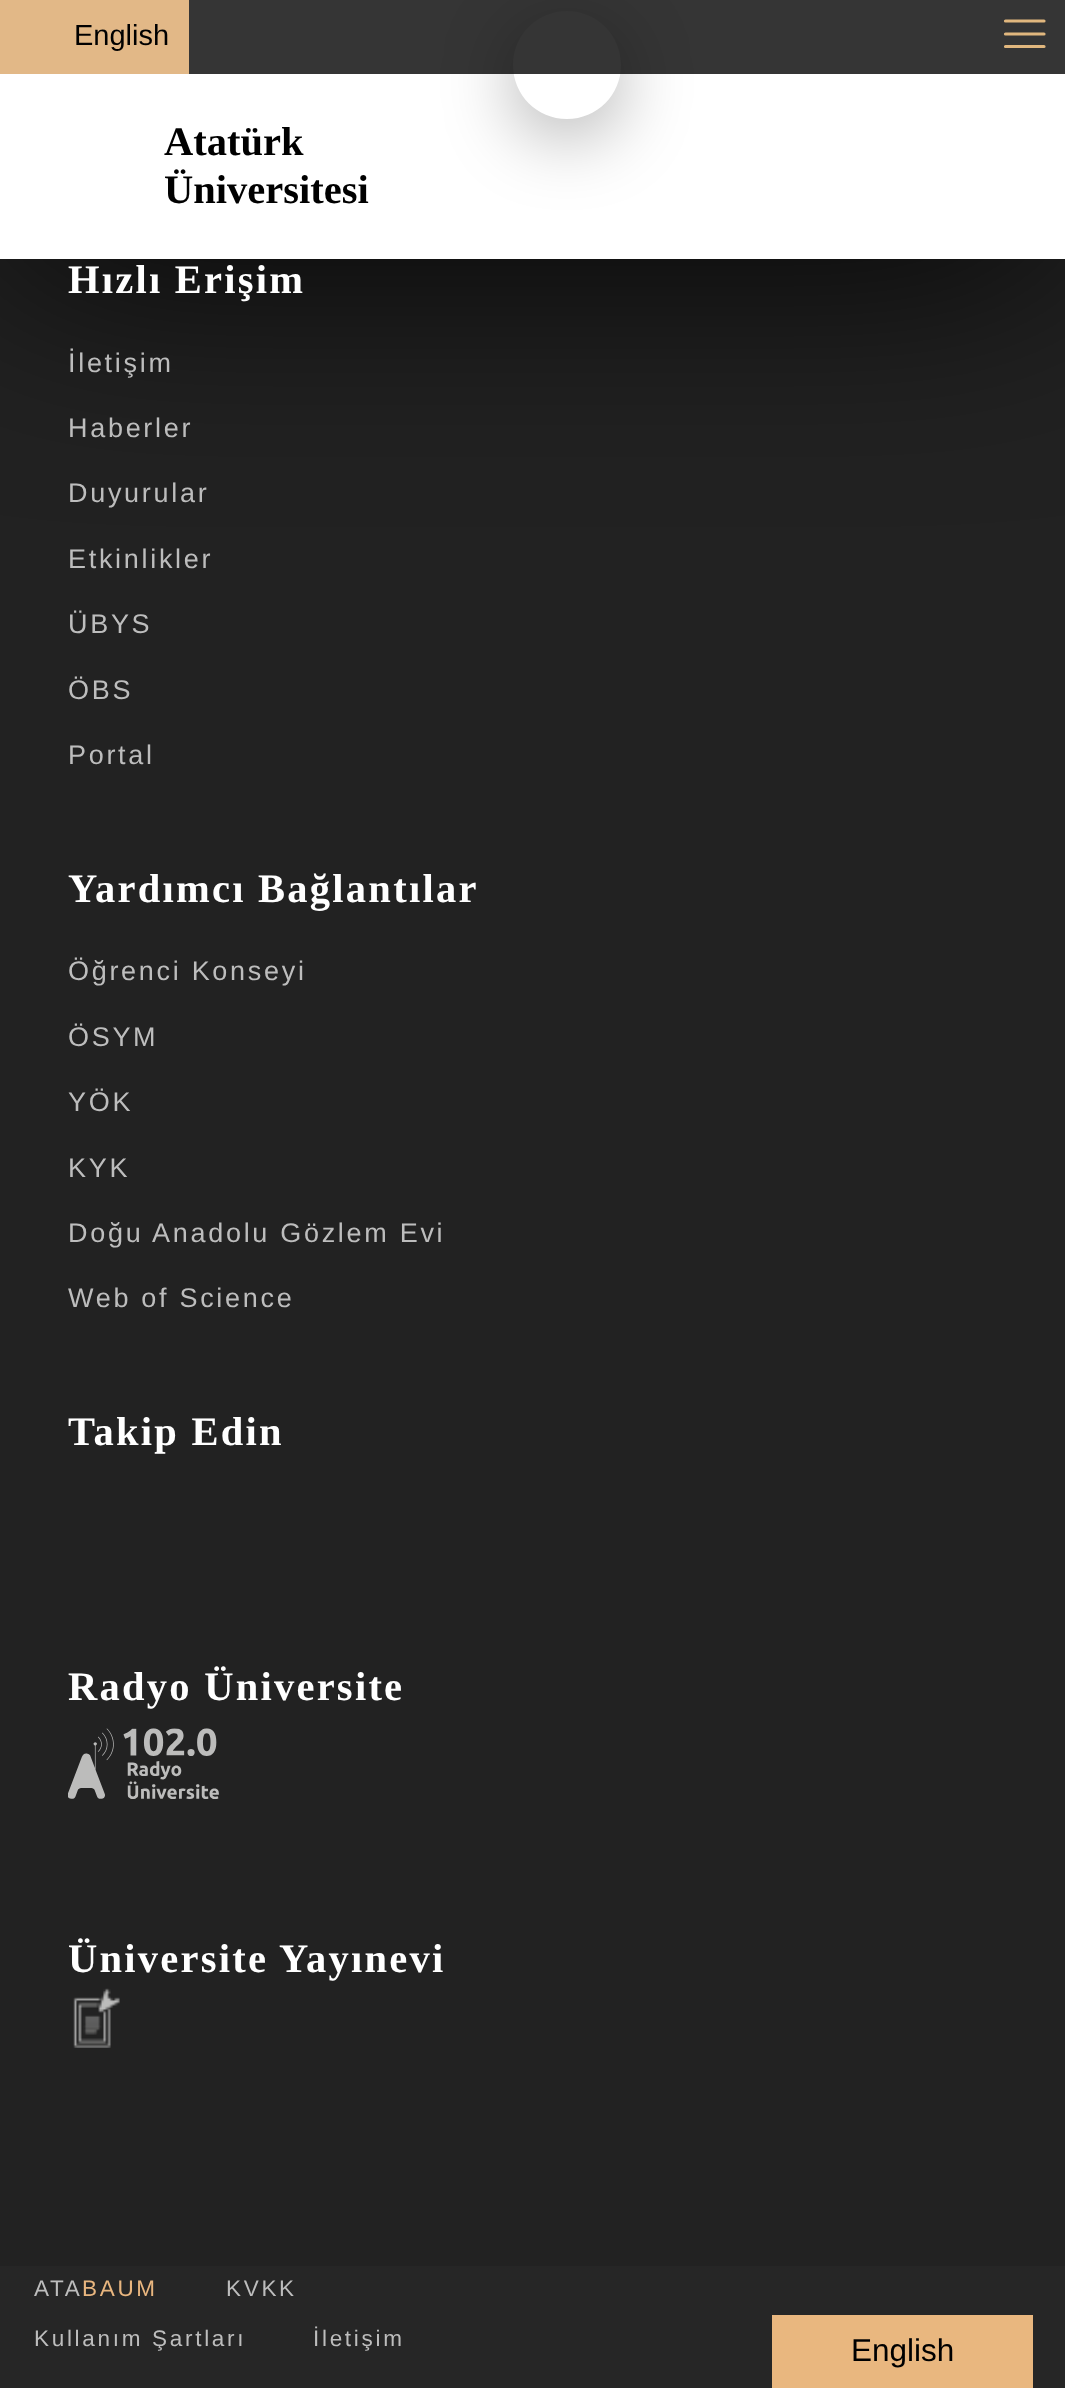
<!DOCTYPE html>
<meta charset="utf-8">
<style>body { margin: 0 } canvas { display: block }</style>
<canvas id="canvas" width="1065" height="2388"></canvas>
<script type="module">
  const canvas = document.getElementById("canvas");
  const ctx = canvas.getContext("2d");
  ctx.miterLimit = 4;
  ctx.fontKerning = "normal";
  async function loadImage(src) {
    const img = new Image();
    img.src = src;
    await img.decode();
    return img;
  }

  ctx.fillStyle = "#222222";
  ctx.fillRect(0, 0, 1065, 2388);
  ctx.fillStyle = "#000000";
  ctx.filter = "blur(112.5px)";
  ctx.beginPath();
  ctx.rect(0, 74, 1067, 185);
  ctx.fill();
  ctx.filter = "none";
  ctx.fillStyle = "#353535";
  ctx.fillRect(189, 0, 876, 74);
  ctx.fillStyle = "#e2b887";
  ctx.fillRect(0, 0, 189, 74);
  ctx.font = "29px Liberation Sans";
  ctx.fillStyle = "#000000";
  ctx.fillText("English", 74, 45);
  ctx.beginPath();
  ctx.moveTo(1005.5, 21);
  ctx.lineTo(1044, 21);
  ctx.moveTo(1005.5, 34);
  ctx.lineTo(1044, 34);
  ctx.moveTo(1005.5, 46.5);
  ctx.lineTo(1044, 46.5);
  ctx.strokeStyle = "#e1b77e";
  ctx.lineWidth = 3.2;
  ctx.lineCap = "round";
  ctx.stroke();
  ctx.fillStyle = "#ffffff";
  ctx.fillRect(0, 74, 1065, 185);
  ctx.save();
  ctx.beginPath();
  ctx.moveTo(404, 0);
  ctx.lineTo(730, 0);
  ctx.lineTo(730, 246);
  ctx.lineTo(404, 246);
  ctx.closePath();
  ctx.moveTo(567, 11);
  ctx.bezierCurveTo(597, 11, 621, 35, 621, 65);
  ctx.bezierCurveTo(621, 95, 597, 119, 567, 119);
  ctx.bezierCurveTo(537, 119, 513, 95, 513, 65);
  ctx.bezierCurveTo(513, 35, 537, 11, 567, 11);
  ctx.closePath();
  ctx.clip("evenodd");
  ctx.fillStyle = "rgba(0, 0, 0, 0.3)";
  ctx.filter = "blur(36px)";
  ctx.beginPath();
  ctx.roundRect(513, 29, 108, 108, 54);
  ctx.fill();
  ctx.filter = "none";
  ctx.restore();
  ctx.font = "bold 40.5px Liberation Serif";
  ctx.fillStyle = "#000000";
  ctx.fillText("Atatürk", 164, 155);
  ctx.fillText("Üniversitesi", 164, 203);
  ctx.letterSpacing = "2.25px";
  ctx.fillStyle = "#ffffff";
  ctx.fillText("Hızlı Erişim", 68, 293);
  ctx.letterSpacing = "2.7px";
  ctx.font = "27px Liberation Sans";
  ctx.fillStyle = "#bdbdbd";
  ctx.fillText("İletişim", 68, 372);
  ctx.fillText("Haberler", 68, 437);
  ctx.fillText("Duyurular", 68, 502);
  ctx.fillText("Etkinlikler", 68, 568);
  ctx.fillText("ÜBYS", 68, 633);
  ctx.fillText("ÖBS", 68, 699);
  ctx.fillText("Portal", 68, 764);
  ctx.letterSpacing = "2.25px";
  ctx.font = "bold 40.5px Liberation Serif";
  ctx.fillStyle = "#ffffff";
  ctx.fillText("Yardımcı Bağlantılar", 68, 902);
  ctx.letterSpacing = "2.7px";
  ctx.font = "27px Liberation Sans";
  ctx.fillStyle = "#bdbdbd";
  ctx.fillText("Öğrenci Konseyi", 68, 980);
  ctx.fillText("ÖSYM", 68, 1046);
  ctx.fillText("YÖK", 68, 1111);
  ctx.fillText("KYK", 68, 1177);
  ctx.fillText("Doğu Anadolu Gözlem Evi", 68, 1242);
  ctx.fillText("Web of Science", 68, 1307);
  ctx.letterSpacing = "2.25px";
  ctx.font = "bold 40.5px Liberation Serif";
  ctx.fillStyle = "#ffffff";
  ctx.fillText("Takip Edin", 68, 1445);
  ctx.fillText("Radyo Üniversite", 68, 1700);
  ctx.drawImage(await loadImage("img1.png"), 68, 1728, 151, 71);
  ctx.fillText("Üniversite Yayınevi", 68, 1972);
  ctx.drawImage(await loadImage("img2.png"), 73, 1988, 47, 60);
  ctx.fillStyle = "#262626";
  ctx.fillRect(0, 2266, 1065, 122);
  ctx.letterSpacing = "2.7px";
  ctx.font = "22.5px Liberation Sans";
  ctx.fillStyle = "#bdbdbd";
  ctx.fillText("ATA", 34, 2296);
  ctx.fillStyle = "#e9b67f";
  ctx.fillText("BAUM", 82, 2296);
  ctx.fillStyle = "#bdbdbd";
  ctx.fillText("KVKK", 226, 2296);
  ctx.fillText("Kullanım Şartları", 34, 2346);
  ctx.fillText("İletişim", 313, 2346);
  ctx.fillStyle = "#e9b77f";
  ctx.fillRect(772, 2315, 261, 73);
  ctx.letterSpacing = "0px";
  ctx.font = "31.5px Liberation Sans";
  ctx.fillStyle = "#000000";
  ctx.fillText("English", 851, 2361);
</script>
